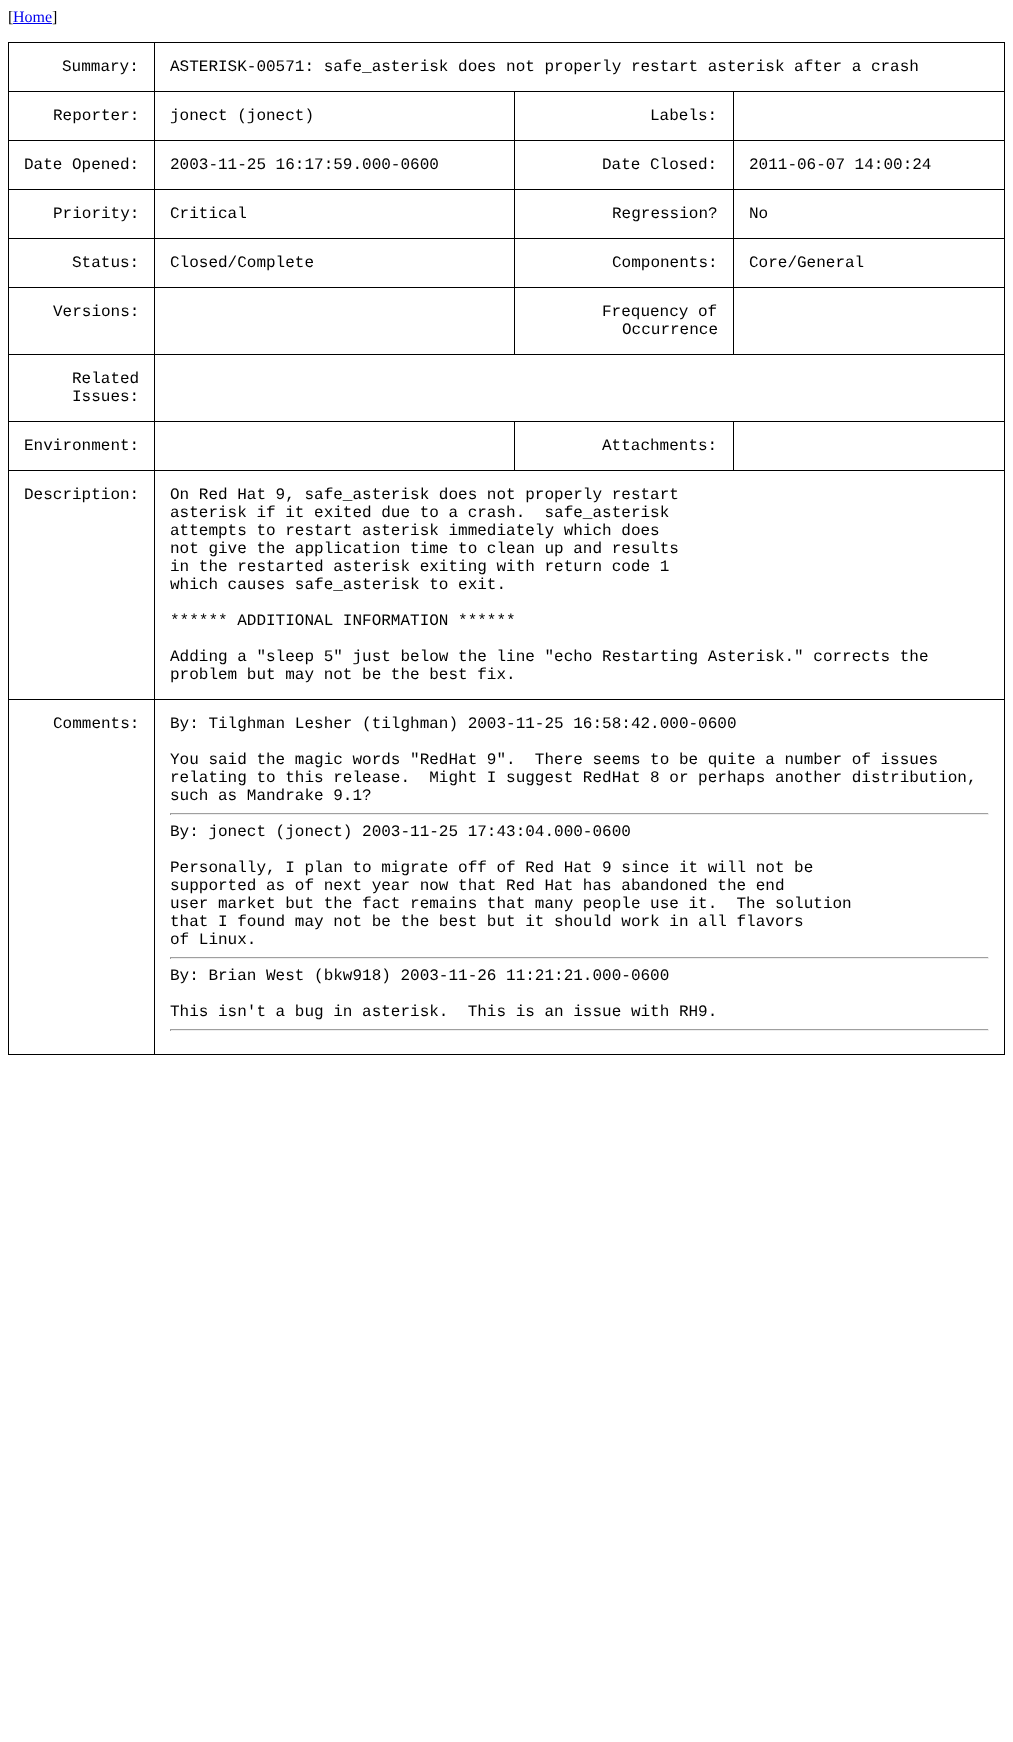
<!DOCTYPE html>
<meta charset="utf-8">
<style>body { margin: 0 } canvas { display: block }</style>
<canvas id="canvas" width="1013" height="1742"></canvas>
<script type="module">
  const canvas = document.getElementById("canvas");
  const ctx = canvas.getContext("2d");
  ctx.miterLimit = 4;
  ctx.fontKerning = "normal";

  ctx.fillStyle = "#ffffff";
  ctx.fillRect(0, 0, 1013, 1742);
  ctx.font = "16px Liberation Serif";
  ctx.fillStyle = "#000000";
  ctx.fillText("[", 8, 22);
  ctx.fillStyle = "#0000ee";
  ctx.fillText("Home", 13, 22);
  ctx.fillRect(13, 23, 39, 1);
  ctx.fillStyle = "#000000";
  ctx.fillText("]", 52, 22);
  ctx.fillRect(154, 42, 851, 1);
  ctx.fillRect(733, 91, 272, 1);
  ctx.fillRect(733, 140, 272, 1);
  ctx.fillRect(733, 189, 272, 1);
  ctx.fillRect(733, 238, 272, 1);
  ctx.fillRect(733, 287, 272, 1);
  ctx.fillRect(154, 354, 851, 1);
  ctx.fillRect(733, 287, 1, 68);
  ctx.fillRect(514, 287, 220, 1);
  ctx.fillRect(733, 238, 1, 50);
  ctx.fillRect(514, 238, 220, 1);
  ctx.fillRect(733, 189, 1, 50);
  ctx.fillRect(514, 189, 220, 1);
  ctx.fillRect(733, 140, 1, 50);
  ctx.fillRect(514, 140, 220, 1);
  ctx.fillRect(733, 91, 1, 50);
  ctx.fillRect(514, 91, 220, 1);
  ctx.fillRect(514, 287, 1, 68);
  ctx.fillRect(154, 287, 361, 1);
  ctx.fillRect(514, 238, 1, 50);
  ctx.fillRect(154, 238, 361, 1);
  ctx.fillRect(514, 189, 1, 50);
  ctx.fillRect(154, 189, 361, 1);
  ctx.fillRect(514, 140, 1, 50);
  ctx.fillRect(154, 140, 361, 1);
  ctx.fillRect(514, 91, 1, 50);
  ctx.fillRect(154, 91, 361, 1);
  ctx.fillRect(733, 421, 272, 1);
  ctx.fillRect(154, 470, 851, 1);
  ctx.fillRect(733, 421, 1, 50);
  ctx.fillRect(514, 421, 220, 1);
  ctx.fillRect(514, 421, 1, 50);
  ctx.fillRect(154, 421, 361, 1);
  ctx.fillRect(154, 699, 851, 1);
  ctx.fillRect(1004, 699, 1, 356);
  ctx.fillRect(154, 1054, 851, 1);
  ctx.fillRect(154, 699, 1, 356);
  ctx.fillRect(8, 699, 147, 1);
  ctx.fillRect(154, 470, 1, 230);
  ctx.fillRect(8, 470, 147, 1);
  ctx.fillRect(154, 421, 1, 50);
  ctx.fillRect(8, 421, 147, 1);
  ctx.fillRect(154, 354, 1, 68);
  ctx.fillRect(8, 354, 147, 1);
  ctx.fillRect(154, 287, 1, 68);
  ctx.fillRect(8, 287, 147, 1);
  ctx.fillRect(154, 238, 1, 50);
  ctx.fillRect(8, 238, 147, 1);
  ctx.fillRect(154, 189, 1, 50);
  ctx.fillRect(8, 189, 147, 1);
  ctx.fillRect(154, 140, 1, 50);
  ctx.fillRect(8, 140, 147, 1);
  ctx.fillRect(154, 91, 1, 50);
  ctx.fillRect(8, 91, 147, 1);
  ctx.fillRect(154, 42, 1, 50);
  ctx.fillRect(8, 42, 147, 1);
  ctx.fillRect(8, 1054, 147, 1);
  ctx.fillRect(8, 699, 1, 356);
  ctx.fillRect(8, 470, 1, 230);
  ctx.fillRect(8, 421, 1, 50);
  ctx.fillRect(8, 354, 1, 68);
  ctx.fillRect(8, 287, 1, 68);
  ctx.fillRect(8, 238, 1, 50);
  ctx.fillRect(8, 189, 1, 50);
  ctx.fillRect(8, 140, 1, 50);
  ctx.fillRect(8, 91, 1, 50);
  ctx.fillRect(8, 42, 1, 50);
  ctx.font = "16px Liberation Mono";
  ctx.fillText("Summary:", 62, 71);
  ctx.fillRect(1004, 470, 1, 230);
  ctx.fillRect(1004, 421, 1, 50);
  ctx.fillRect(1004, 354, 1, 68);
  ctx.fillRect(1004, 287, 1, 68);
  ctx.fillRect(1004, 238, 1, 50);
  ctx.fillRect(1004, 189, 1, 50);
  ctx.fillRect(1004, 140, 1, 50);
  ctx.fillRect(1004, 91, 1, 50);
  ctx.fillRect(1004, 42, 1, 50);
  ctx.fillText("ASTERISK-00571: safe_asterisk does not properly restart asterisk after a crash", 170, 71);
  ctx.fillText("Reporter:", 53, 120);
  ctx.fillText("jonect (jonect)", 170, 120);
  ctx.fillText("Labels:", 650, 120);
  ctx.fillText("Date Opened:", 24, 169);
  ctx.fillText("2003-11-25 16:17:59.000-0600", 170, 169);
  ctx.fillText("Date Closed:", 602, 169);
  ctx.fillText("2011-06-07 14:00:24", 749, 169);
  ctx.fillText("Priority:", 53, 218);
  ctx.fillText("Critical", 170, 218);
  ctx.fillText("Regression?", 612, 218);
  ctx.fillText("No", 749, 218);
  ctx.fillText("Status:", 72, 267);
  ctx.fillText("Closed/Complete", 170, 267);
  ctx.fillText("Components:", 612, 267);
  ctx.fillText("Core/General", 749, 267);
  ctx.fillText("Versions:", 53, 316);
  ctx.fillText("Frequency of", 602, 316);
  ctx.fillText("Occurrence", 622, 334);
  ctx.fillText("Related", 72, 383);
  ctx.fillText("Issues:", 72, 401);
  ctx.fillText("Environment:", 24, 450);
  ctx.fillText("Attachments:", 602, 450);
  ctx.fillText("Description:", 24, 499);
  ctx.fillText("On Red Hat 9, safe_asterisk does not properly restart", 170, 499);
  ctx.fillText("asterisk if it exited due to a crash.  safe_asterisk", 170, 517);
  ctx.fillText("attempts to restart asterisk immediately which does", 170, 535);
  ctx.fillText("not give the application time to clean up and results", 170, 553);
  ctx.fillText("in the restarted asterisk exiting with return code 1", 170, 571);
  ctx.fillText("which causes safe_asterisk to exit.", 170, 589);
  ctx.fillText("****** ADDITIONAL INFORMATION ******", 170, 625);
  ctx.fillText("Adding a \"sleep 5\" just below the line \"echo Restarting Asterisk.\" corrects the", 170, 661);
  ctx.fillText("problem but may not be the best fix.", 170, 679);
  ctx.fillText("Comments:", 53, 728);
  ctx.fillText("By: Tilghman Lesher (tilghman) 2003-11-25 16:58:42.000-0600", 170, 728);
  ctx.fillText("You said the magic words \"RedHat 9\".  There seems to be quite a number of issues", 170, 764);
  ctx.fillText("relating to this release.  Might I suggest RedHat 8 or perhaps another distribution,", 170, 782);
  ctx.fillText("such as Mandrake 9.1?", 170, 800);
  ctx.fillStyle = "#9f9f9f";
  ctx.fillRect(170, 813, 819, 1);
  ctx.fillStyle = "#eeeeee";
  ctx.fillRect(988, 813, 1, 2);
  ctx.fillRect(170, 814, 819, 1);
  ctx.fillStyle = "#9f9f9f";
  ctx.fillRect(170, 813, 1, 2);
  ctx.fillStyle = "#000000";
  ctx.fillText("By: jonect (jonect) 2003-11-25 17:43:04.000-0600", 170, 836);
  ctx.fillText("Personally, I plan to migrate off of Red Hat 9 since it will not be", 170, 872);
  ctx.fillText("supported as of next year now that Red Hat has abandoned the end", 170, 890);
  ctx.fillText("user market but the fact remains that many people use it.  The solution", 170, 908);
  ctx.fillText("that I found may not be the best but it should work in all flavors", 170, 926);
  ctx.fillText("of Linux.", 170, 944);
  ctx.fillStyle = "#9f9f9f";
  ctx.fillRect(170, 957, 819, 1);
  ctx.fillStyle = "#eeeeee";
  ctx.fillRect(988, 957, 1, 2);
  ctx.fillRect(170, 958, 819, 1);
  ctx.fillStyle = "#9f9f9f";
  ctx.fillRect(170, 957, 1, 2);
  ctx.fillStyle = "#000000";
  ctx.fillText("By: Brian West (bkw918) 2003-11-26 11:21:21.000-0600", 170, 980);
  ctx.fillText("This isn't a bug in asterisk.  This is an issue with RH9.", 170, 1016);
  ctx.fillStyle = "#9f9f9f";
  ctx.fillRect(170, 1029, 819, 1);
  ctx.fillStyle = "#eeeeee";
  ctx.fillRect(988, 1029, 1, 2);
  ctx.fillRect(170, 1030, 819, 1);
  ctx.fillStyle = "#9f9f9f";
  ctx.fillRect(170, 1029, 1, 2);
</script>
